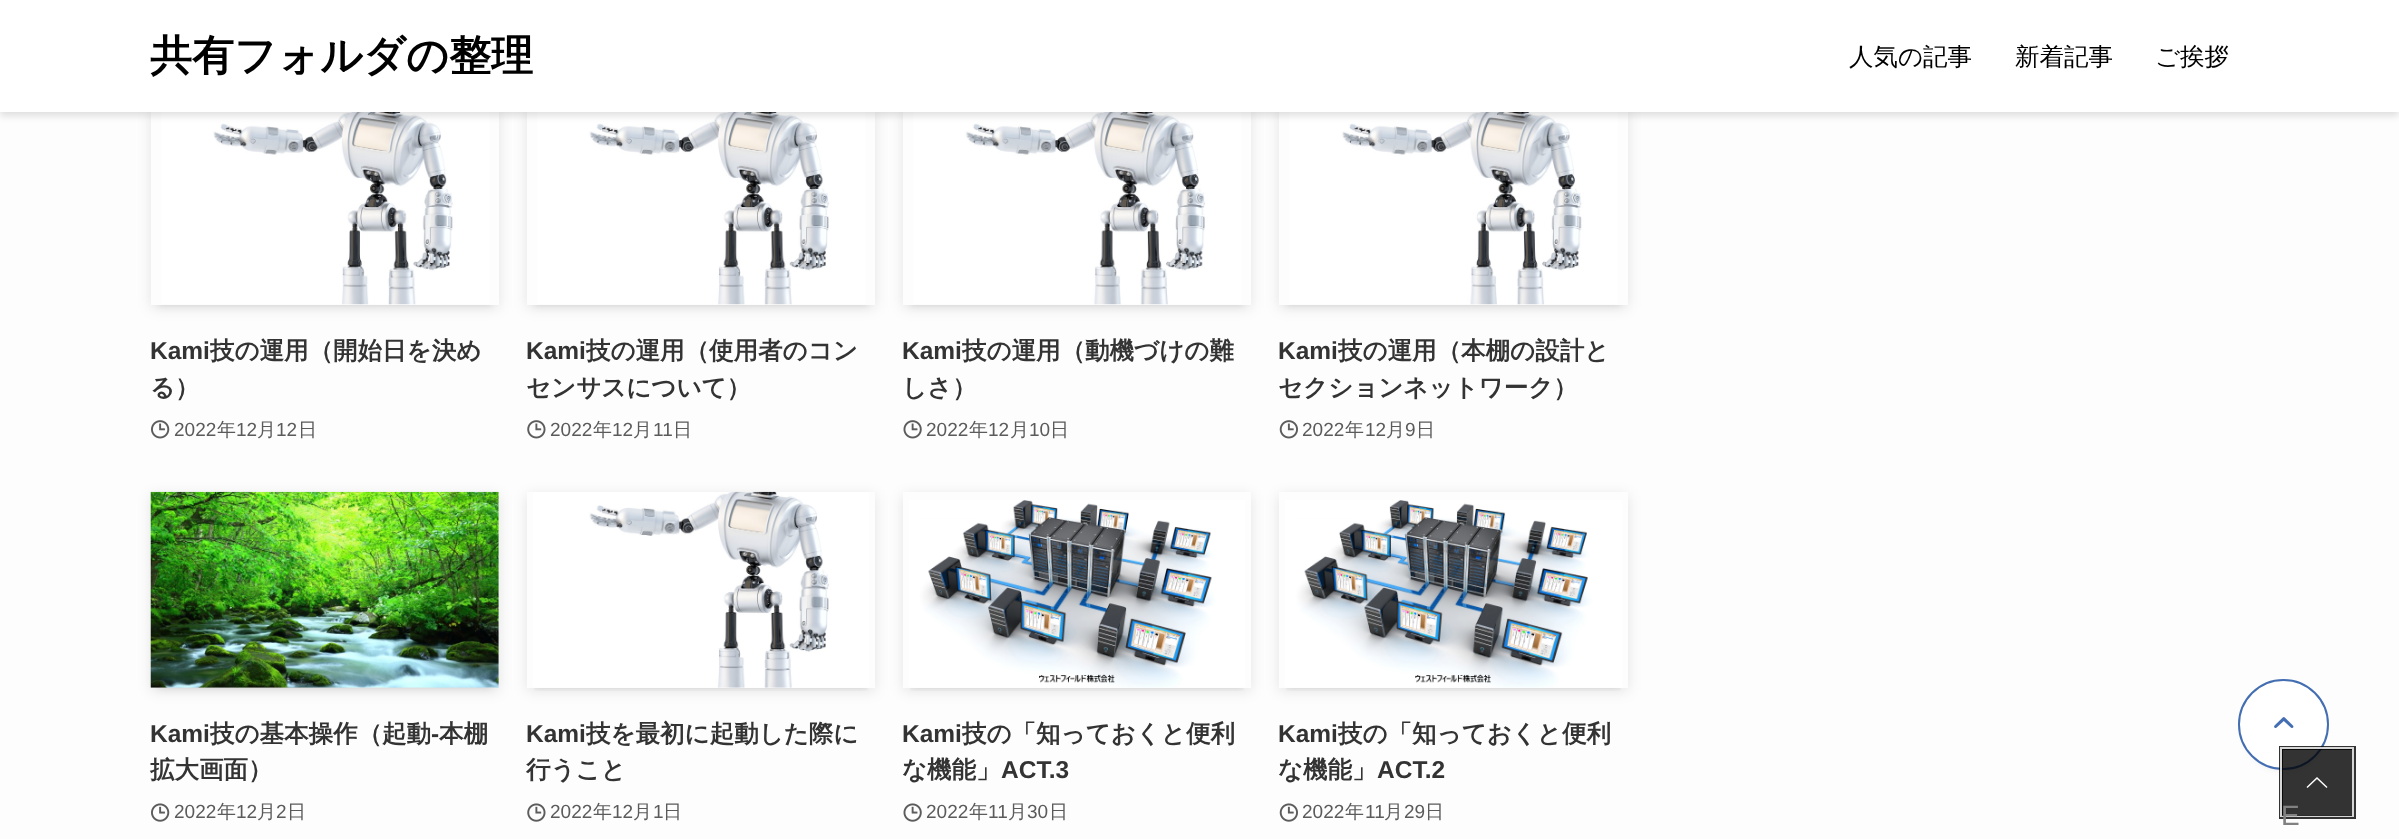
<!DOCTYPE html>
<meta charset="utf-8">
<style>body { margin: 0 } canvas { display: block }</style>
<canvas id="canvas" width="2399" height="839"></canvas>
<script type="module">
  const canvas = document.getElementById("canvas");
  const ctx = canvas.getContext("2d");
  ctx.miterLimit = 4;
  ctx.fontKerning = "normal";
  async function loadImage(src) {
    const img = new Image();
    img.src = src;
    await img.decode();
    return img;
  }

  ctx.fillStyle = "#fdfdfd";
  ctx.fillRect(0, 0, 2399, 839);
  ctx.save();
  ctx.beginPath();
  ctx.moveTo(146, 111);
  ctx.lineTo(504, 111);
  ctx.lineTo(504, 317);
  ctx.lineTo(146, 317);
  ctx.closePath();
  ctx.moveTo(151, 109);
  ctx.lineTo(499, 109);
  ctx.lineTo(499, 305);
  ctx.lineTo(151, 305);
  ctx.closePath();
  ctx.clip("evenodd");
  ctx.fillStyle = "rgba(0, 0, 0, 0.1)";
  ctx.filter = "blur(3.5px)";
  ctx.beginPath();
  ctx.rect(158, 123, 334, 182);
  ctx.fill();
  ctx.filter = "none";
  ctx.restore();
  ctx.save();
  ctx.beginPath();
  ctx.moveTo(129, 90);
  ctx.lineTo(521, 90);
  ctx.lineTo(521, 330);
  ctx.lineTo(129, 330);
  ctx.closePath();
  ctx.moveTo(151, 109);
  ctx.lineTo(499, 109);
  ctx.lineTo(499, 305);
  ctx.lineTo(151, 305);
  ctx.closePath();
  ctx.clip("evenodd");
  ctx.fillStyle = "rgba(0, 0, 0, 0.1)";
  ctx.filter = "blur(7px)";
  ctx.beginPath();
  ctx.rect(151, 112, 348, 196);
  ctx.fill();
  ctx.filter = "none";
  ctx.restore();
  ctx.drawImage(await loadImage("img1.png"), 161, 112, 328, 193);
  ctx.save();
  ctx.beginPath();
  ctx.moveTo(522, 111);
  ctx.lineTo(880, 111);
  ctx.lineTo(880, 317);
  ctx.lineTo(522, 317);
  ctx.closePath();
  ctx.moveTo(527, 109);
  ctx.lineTo(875, 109);
  ctx.lineTo(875, 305);
  ctx.lineTo(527, 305);
  ctx.closePath();
  ctx.clip("evenodd");
  ctx.fillStyle = "rgba(0, 0, 0, 0.1)";
  ctx.filter = "blur(3.5px)";
  ctx.beginPath();
  ctx.rect(534, 123, 334, 182);
  ctx.fill();
  ctx.filter = "none";
  ctx.restore();
  ctx.save();
  ctx.beginPath();
  ctx.moveTo(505, 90);
  ctx.lineTo(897, 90);
  ctx.lineTo(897, 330);
  ctx.lineTo(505, 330);
  ctx.closePath();
  ctx.moveTo(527, 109);
  ctx.lineTo(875, 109);
  ctx.lineTo(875, 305);
  ctx.lineTo(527, 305);
  ctx.closePath();
  ctx.clip("evenodd");
  ctx.fillStyle = "rgba(0, 0, 0, 0.1)";
  ctx.filter = "blur(7px)";
  ctx.beginPath();
  ctx.rect(527, 112, 348, 196);
  ctx.fill();
  ctx.filter = "none";
  ctx.restore();
  ctx.drawImage(await loadImage("img3.png"), 537, 112, 328, 193);
  ctx.save();
  ctx.beginPath();
  ctx.moveTo(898, 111);
  ctx.lineTo(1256, 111);
  ctx.lineTo(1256, 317);
  ctx.lineTo(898, 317);
  ctx.closePath();
  ctx.moveTo(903, 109);
  ctx.lineTo(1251, 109);
  ctx.lineTo(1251, 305);
  ctx.lineTo(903, 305);
  ctx.closePath();
  ctx.clip("evenodd");
  ctx.fillStyle = "rgba(0, 0, 0, 0.1)";
  ctx.filter = "blur(3.5px)";
  ctx.beginPath();
  ctx.rect(910, 123, 334, 182);
  ctx.fill();
  ctx.filter = "none";
  ctx.restore();
  ctx.save();
  ctx.beginPath();
  ctx.moveTo(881, 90);
  ctx.lineTo(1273, 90);
  ctx.lineTo(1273, 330);
  ctx.lineTo(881, 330);
  ctx.closePath();
  ctx.moveTo(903, 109);
  ctx.lineTo(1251, 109);
  ctx.lineTo(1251, 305);
  ctx.lineTo(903, 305);
  ctx.closePath();
  ctx.clip("evenodd");
  ctx.fillStyle = "rgba(0, 0, 0, 0.1)";
  ctx.filter = "blur(7px)";
  ctx.beginPath();
  ctx.rect(903, 112, 348, 196);
  ctx.fill();
  ctx.filter = "none";
  ctx.restore();
  ctx.drawImage(await loadImage("img5.png"), 913, 112, 328, 193);
  ctx.save();
  ctx.beginPath();
  ctx.moveTo(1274, 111);
  ctx.lineTo(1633, 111);
  ctx.lineTo(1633, 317);
  ctx.lineTo(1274, 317);
  ctx.closePath();
  ctx.moveTo(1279, 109);
  ctx.lineTo(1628, 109);
  ctx.lineTo(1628, 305);
  ctx.lineTo(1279, 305);
  ctx.closePath();
  ctx.clip("evenodd");
  ctx.fillStyle = "rgba(0, 0, 0, 0.1)";
  ctx.filter = "blur(3.5px)";
  ctx.beginPath();
  ctx.rect(1286, 123, 335, 182);
  ctx.fill();
  ctx.filter = "none";
  ctx.restore();
  ctx.save();
  ctx.beginPath();
  ctx.moveTo(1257, 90);
  ctx.lineTo(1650, 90);
  ctx.lineTo(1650, 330);
  ctx.lineTo(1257, 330);
  ctx.closePath();
  ctx.moveTo(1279, 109);
  ctx.lineTo(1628, 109);
  ctx.lineTo(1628, 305);
  ctx.lineTo(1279, 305);
  ctx.closePath();
  ctx.clip("evenodd");
  ctx.fillStyle = "rgba(0, 0, 0, 0.1)";
  ctx.filter = "blur(7px)";
  ctx.beginPath();
  ctx.rect(1279, 112, 349, 196);
  ctx.fill();
  ctx.filter = "none";
  ctx.restore();
  ctx.drawImage(await loadImage("img7.png"), 1289, 112, 329, 193);
  ctx.fillStyle = "rgba(0, 0, 0, 0.12)";
  ctx.filter = "blur(3.5px)";
  ctx.beginPath();
  ctx.rect(0, 4, 2399, 112);
  ctx.fill();
  ctx.filter = "none";
  ctx.fillStyle = "#ffffff";
  ctx.fillRect(0, 0, 2399, 112);
  ctx.font = "bold 42px WenQuanYi Zen Hei";
  ctx.fillStyle = "#000000";
  ctx.fillText("共有フォルダの整理", 150, 70);
  ctx.font = "500 24.5px WenQuanYi Zen Hei";
  ctx.fillText("人気の記事", 1849, 65);
  ctx.fillText("新着記事", 2015, 65);
  ctx.fillText("ご挨拶", 2155, 65);
  ctx.font = "bold 24.5px Liberation Sans";
  ctx.fillStyle = "#333333";
  ctx.fillText("Kami", 150, 359);
  ctx.font = "bold 24.5px WenQuanYi Zen Hei";
  ctx.fillText("技の運用（開始日を決め", 210, 359);
  ctx.fillText("る）", 150, 396);
  ctx.drawImage(await loadImage("img2.png"), 151, 420, 19, 19);
  ctx.font = "19px Liberation Sans";
  ctx.fillStyle = "#5b5b5b";
  ctx.fillText("2022", 174, 436);
  ctx.font = "500 19px WenQuanYi Zen Hei";
  ctx.fillText("年", 217, 436);
  ctx.font = "19px Liberation Sans";
  ctx.fillText("12", 236, 436);
  ctx.font = "500 19px WenQuanYi Zen Hei";
  ctx.fillText("月", 257, 436);
  ctx.font = "19px Liberation Sans";
  ctx.fillText("12", 276, 436);
  ctx.font = "500 19px WenQuanYi Zen Hei";
  ctx.fillText("日", 298, 436);
  ctx.font = "bold 24.5px Liberation Sans";
  ctx.fillStyle = "#333333";
  ctx.fillText("Kami", 526, 359);
  ctx.font = "bold 24.5px WenQuanYi Zen Hei";
  ctx.fillText("技の運用（使用者のコン", 586, 359);
  ctx.fillText("センサスについて）", 526, 396);
  ctx.drawImage(await loadImage("img4.png"), 527, 420, 19, 19);
  ctx.font = "19px Liberation Sans";
  ctx.fillStyle = "#5b5b5b";
  ctx.fillText("2022", 550, 436);
  ctx.font = "500 19px WenQuanYi Zen Hei";
  ctx.fillText("年", 593, 436);
  ctx.font = "19px Liberation Sans";
  ctx.fillText("12", 612, 436);
  ctx.font = "500 19px WenQuanYi Zen Hei";
  ctx.fillText("月", 633, 436);
  ctx.font = "19px Liberation Sans";
  ctx.fillText("11", 653, 436);
  ctx.font = "500 19px WenQuanYi Zen Hei";
  ctx.fillText("日", 673, 436);
  ctx.font = "bold 24.5px Liberation Sans";
  ctx.fillStyle = "#333333";
  ctx.fillText("Kami", 902, 359);
  ctx.font = "bold 24.5px WenQuanYi Zen Hei";
  ctx.fillText("技の運用（動機づけの難", 962, 359);
  ctx.fillText("しさ）", 902, 396);
  ctx.drawImage(await loadImage("img6.png"), 903, 420, 19, 19);
  ctx.font = "19px Liberation Sans";
  ctx.fillStyle = "#5b5b5b";
  ctx.fillText("2022", 926, 436);
  ctx.font = "500 19px WenQuanYi Zen Hei";
  ctx.fillText("年", 969, 436);
  ctx.font = "19px Liberation Sans";
  ctx.fillText("12", 988, 436);
  ctx.font = "500 19px WenQuanYi Zen Hei";
  ctx.fillText("月", 1010, 436);
  ctx.font = "19px Liberation Sans";
  ctx.fillText("10", 1029, 436);
  ctx.font = "500 19px WenQuanYi Zen Hei";
  ctx.fillText("日", 1050, 436);
  ctx.font = "bold 24.5px Liberation Sans";
  ctx.fillStyle = "#333333";
  ctx.fillText("Kami", 1278, 359);
  ctx.font = "bold 24.5px WenQuanYi Zen Hei";
  ctx.fillText("技の運用（本棚の設計と", 1338, 359);
  ctx.fillText("セクションネットワーク）", 1278, 396);
  ctx.drawImage(await loadImage("img8.png"), 1279, 420, 19, 19);
  ctx.font = "19px Liberation Sans";
  ctx.fillStyle = "#5b5b5b";
  ctx.fillText("2022", 1302, 436);
  ctx.font = "500 19px WenQuanYi Zen Hei";
  ctx.fillText("年", 1345, 436);
  ctx.font = "19px Liberation Sans";
  ctx.fillText("12", 1365, 436);
  ctx.font = "500 19px WenQuanYi Zen Hei";
  ctx.fillText("月", 1386, 436);
  ctx.font = "19px Liberation Sans";
  ctx.fillText("9", 1405, 436);
  ctx.font = "500 19px WenQuanYi Zen Hei";
  ctx.fillText("日", 1416, 436);
  ctx.fillStyle = "rgba(0, 0, 0, 0.1)";
  ctx.filter = "blur(3.5px)";
  ctx.beginPath();
  ctx.rect(158, 506, 334, 182);
  ctx.fill();
  ctx.filter = "none";
  ctx.filter = "blur(7px)";
  ctx.beginPath();
  ctx.rect(151, 495, 348, 196);
  ctx.fill();
  ctx.filter = "none";
  ctx.drawImage(await loadImage("img9.png"), 150, 491, 349, 197);
  ctx.font = "bold 24.5px Liberation Sans";
  ctx.fillStyle = "#333333";
  ctx.fillText("Kami", 150, 742);
  ctx.font = "bold 24.5px WenQuanYi Zen Hei";
  ctx.fillText("技の基本操作（起動", 210, 742);
  ctx.font = "bold 24.5px Liberation Sans";
  ctx.fillText("-", 431, 742);
  ctx.font = "bold 24.5px WenQuanYi Zen Hei";
  ctx.fillText("本棚", 439, 742);
  ctx.fillText("拡大画面）", 150, 778);
  ctx.drawImage(await loadImage("img10.png"), 151, 803, 19, 19);
  ctx.font = "19px Liberation Sans";
  ctx.fillStyle = "#5b5b5b";
  ctx.fillText("2022", 174, 818);
  ctx.font = "500 19px WenQuanYi Zen Hei";
  ctx.fillText("年", 217, 818);
  ctx.font = "19px Liberation Sans";
  ctx.fillText("12", 236, 818);
  ctx.font = "500 19px WenQuanYi Zen Hei";
  ctx.fillText("月", 257, 818);
  ctx.font = "19px Liberation Sans";
  ctx.fillText("2", 276, 818);
  ctx.font = "500 19px WenQuanYi Zen Hei";
  ctx.fillText("日", 287, 818);
  ctx.save();
  ctx.beginPath();
  ctx.rect(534, 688, 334, 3);
  ctx.clip();
  ctx.fillStyle = "rgba(0, 0, 0, 0.1)";
  ctx.filter = "blur(3.5px)";
  ctx.beginPath();
  ctx.rect(534, 506, 334, 182);
  ctx.fill();
  ctx.filter = "none";
  ctx.restore();
  ctx.save();
  ctx.beginPath();
  ctx.moveTo(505, 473);
  ctx.lineTo(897, 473);
  ctx.lineTo(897, 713);
  ctx.lineTo(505, 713);
  ctx.closePath();
  ctx.moveTo(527, 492);
  ctx.lineTo(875, 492);
  ctx.lineTo(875, 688);
  ctx.lineTo(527, 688);
  ctx.closePath();
  ctx.clip("evenodd");
  ctx.fillStyle = "rgba(0, 0, 0, 0.1)";
  ctx.filter = "blur(7px)";
  ctx.beginPath();
  ctx.rect(527, 495, 348, 196);
  ctx.fill();
  ctx.filter = "none";
  ctx.restore();
  ctx.drawImage(await loadImage("img11.png"), 533, 491, 336, 197);
  ctx.font = "bold 24.5px Liberation Sans";
  ctx.fillStyle = "#333333";
  ctx.fillText("Kami", 526, 742);
  ctx.font = "bold 24.5px WenQuanYi Zen Hei";
  ctx.fillText("技を最初に起動した際に", 586, 742);
  ctx.fillText("行うこと", 526, 778);
  ctx.drawImage(await loadImage("img12.png"), 527, 803, 19, 19);
  ctx.font = "19px Liberation Sans";
  ctx.fillStyle = "#5b5b5b";
  ctx.fillText("2022", 550, 818);
  ctx.font = "500 19px WenQuanYi Zen Hei";
  ctx.fillText("年", 593, 818);
  ctx.font = "19px Liberation Sans";
  ctx.fillText("12", 612, 818);
  ctx.font = "500 19px WenQuanYi Zen Hei";
  ctx.fillText("月", 633, 818);
  ctx.font = "19px Liberation Sans";
  ctx.fillText("1", 653, 818);
  ctx.font = "500 19px WenQuanYi Zen Hei";
  ctx.fillText("日", 663, 818);
  ctx.save();
  ctx.beginPath();
  ctx.rect(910, 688, 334, 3);
  ctx.clip();
  ctx.fillStyle = "rgba(0, 0, 0, 0.1)";
  ctx.filter = "blur(3.5px)";
  ctx.beginPath();
  ctx.rect(910, 506, 334, 182);
  ctx.fill();
  ctx.filter = "none";
  ctx.restore();
  ctx.save();
  ctx.beginPath();
  ctx.moveTo(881, 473);
  ctx.lineTo(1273, 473);
  ctx.lineTo(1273, 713);
  ctx.lineTo(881, 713);
  ctx.closePath();
  ctx.moveTo(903, 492);
  ctx.lineTo(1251, 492);
  ctx.lineTo(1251, 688);
  ctx.lineTo(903, 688);
  ctx.closePath();
  ctx.clip("evenodd");
  ctx.fillStyle = "rgba(0, 0, 0, 0.1)";
  ctx.filter = "blur(7px)";
  ctx.beginPath();
  ctx.rect(903, 495, 348, 196);
  ctx.fill();
  ctx.filter = "none";
  ctx.restore();
  ctx.drawImage(await loadImage("img13.png"), 909, 500, 336, 188);
  ctx.font = "bold 24.5px Liberation Sans";
  ctx.fillStyle = "#333333";
  ctx.fillText("Kami", 902, 742);
  ctx.font = "bold 24.5px WenQuanYi Zen Hei";
  ctx.fillText("技の「知っておくと便利", 962, 742);
  ctx.fillText("な機能」", 902, 778);
  ctx.font = "bold 24.5px Liberation Sans";
  ctx.fillText("ACT.3", 1001, 778);
  ctx.drawImage(await loadImage("img14.png"), 903, 803, 19, 19);
  ctx.font = "19px Liberation Sans";
  ctx.fillStyle = "#5b5b5b";
  ctx.fillText("2022", 926, 818);
  ctx.font = "500 19px WenQuanYi Zen Hei";
  ctx.fillText("年", 969, 818);
  ctx.font = "19px Liberation Sans";
  ctx.fillText("11", 988, 818);
  ctx.font = "500 19px WenQuanYi Zen Hei";
  ctx.fillText("月", 1008, 818);
  ctx.font = "19px Liberation Sans";
  ctx.fillText("30", 1027, 818);
  ctx.font = "500 19px WenQuanYi Zen Hei";
  ctx.fillText("日", 1049, 818);
  ctx.save();
  ctx.beginPath();
  ctx.rect(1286, 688, 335, 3);
  ctx.clip();
  ctx.fillStyle = "rgba(0, 0, 0, 0.1)";
  ctx.filter = "blur(3.5px)";
  ctx.beginPath();
  ctx.rect(1286, 506, 335, 182);
  ctx.fill();
  ctx.filter = "none";
  ctx.restore();
  ctx.save();
  ctx.beginPath();
  ctx.moveTo(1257, 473);
  ctx.lineTo(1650, 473);
  ctx.lineTo(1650, 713);
  ctx.lineTo(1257, 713);
  ctx.closePath();
  ctx.moveTo(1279, 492);
  ctx.lineTo(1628, 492);
  ctx.lineTo(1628, 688);
  ctx.lineTo(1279, 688);
  ctx.closePath();
  ctx.clip("evenodd");
  ctx.fillStyle = "rgba(0, 0, 0, 0.1)";
  ctx.filter = "blur(7px)";
  ctx.beginPath();
  ctx.rect(1279, 495, 349, 196);
  ctx.fill();
  ctx.filter = "none";
  ctx.restore();
  ctx.drawImage(await loadImage("img15.png"), 1285, 500, 337, 188);
  ctx.font = "bold 24.5px Liberation Sans";
  ctx.fillStyle = "#333333";
  ctx.fillText("Kami", 1278, 742);
  ctx.font = "bold 24.5px WenQuanYi Zen Hei";
  ctx.fillText("技の「知っておくと便利", 1338, 742);
  ctx.fillText("な機能」", 1278, 778);
  ctx.font = "bold 24.5px Liberation Sans";
  ctx.fillText("ACT.2", 1377, 778);
  ctx.drawImage(await loadImage("img16.png"), 1279, 803, 19, 19);
  ctx.font = "19px Liberation Sans";
  ctx.fillStyle = "#5b5b5b";
  ctx.fillText("2022", 1302, 818);
  ctx.font = "500 19px WenQuanYi Zen Hei";
  ctx.fillText("年", 1345, 818);
  ctx.font = "19px Liberation Sans";
  ctx.fillText("11", 1365, 818);
  ctx.font = "500 19px WenQuanYi Zen Hei";
  ctx.fillText("月", 1384, 818);
  ctx.font = "19px Liberation Sans";
  ctx.fillText("29", 1404, 818);
  ctx.font = "500 19px WenQuanYi Zen Hei";
  ctx.fillText("日", 1425, 818);
  ctx.fillStyle = "rgba(63, 63, 63, 0.1)";
  ctx.filter = "blur(3.5px)";
  ctx.beginPath();
  ctx.roundRect(2245, 693, 77, 77, 38.5);
  ctx.fill();
  ctx.filter = "none";
  ctx.fillStyle = "#ffffff";
  ctx.beginPath();
  ctx.arc(2283.5, 724.5, 44.5, 0, Math.PI * 2);
  ctx.fill();
  ctx.strokeStyle = "#446eb2";
  ctx.lineWidth = 2;
  ctx.stroke();
  ctx.drawImage(await loadImage("img17.png"), 2274, 717, 20, 11);
  ctx.strokeStyle = "rgba(0, 0, 0, 0.8)";
  ctx.lineWidth = 4;
  ctx.strokeRect(2281, 748, 73, 69);
  ctx.strokeStyle = "rgba(255, 255, 255, 0.8)";
  ctx.lineWidth = 2;
  ctx.strokeRect(2281, 748, 72, 68);
  ctx.fillStyle = "rgba(0, 0, 0, 0.8)";
  ctx.fillRect(2282, 749, 70, 67);
  ctx.fillStyle = "#ffffff";
  ctx.beginPath();
  ctx.moveTo(2327.5, 787);
  ctx.lineTo(2326.5, 788);
  ctx.lineTo(2317, 779);
  ctx.lineTo(2307.5, 788);
  ctx.lineTo(2306.5, 787);
  ctx.lineTo(2317, 777);
  ctx.closePath();
  ctx.fill();
  ctx.font = "28px Liberation Sans";
  ctx.fillStyle = "#818181";
  ctx.fillText("E", 2281, 825);
</script>
